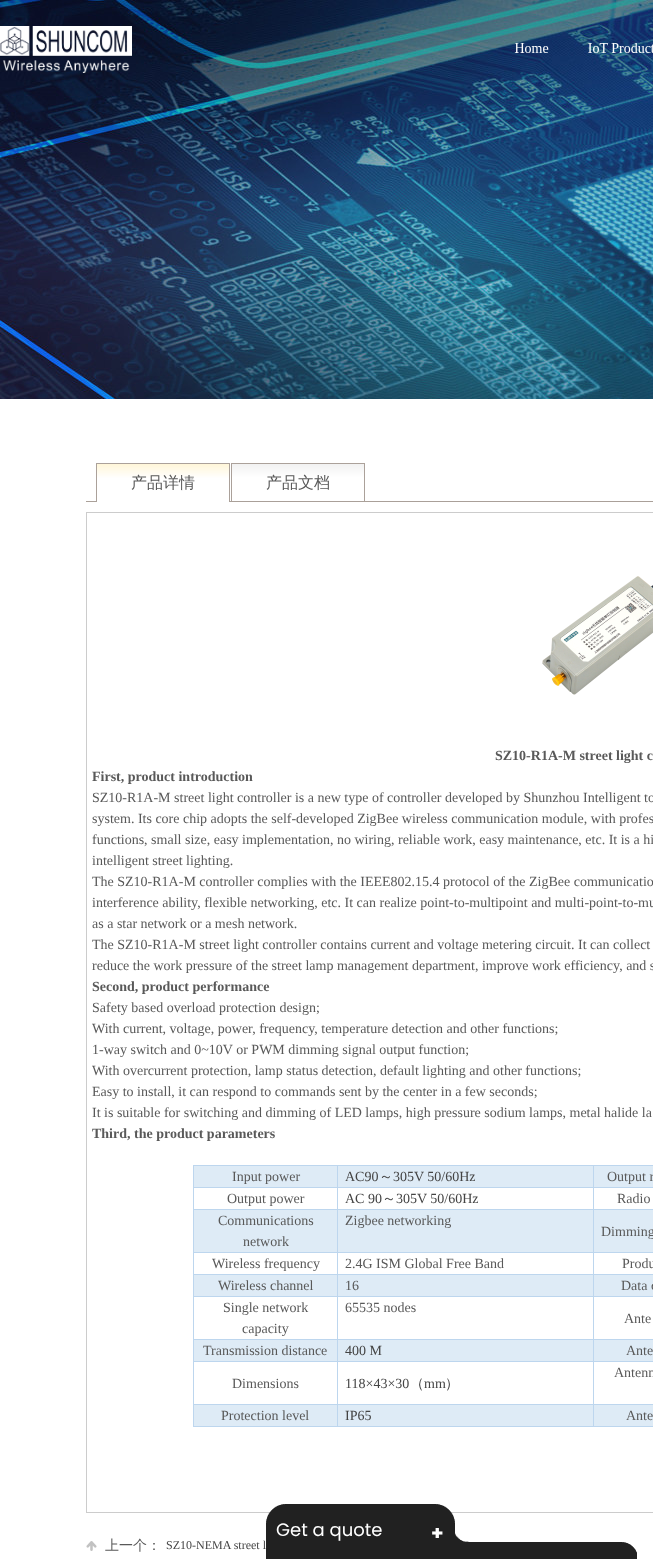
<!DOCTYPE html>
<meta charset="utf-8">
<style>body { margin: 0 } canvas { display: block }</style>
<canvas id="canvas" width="653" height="1559"></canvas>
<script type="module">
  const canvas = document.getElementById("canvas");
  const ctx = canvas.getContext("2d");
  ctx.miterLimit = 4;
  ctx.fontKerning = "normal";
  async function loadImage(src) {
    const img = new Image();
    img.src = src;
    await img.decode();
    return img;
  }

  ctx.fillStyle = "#ffffff";
  ctx.fillRect(0, 0, 653, 1559);
  ctx.drawImage(await loadImage("img1.png"), 0, 0, 653, 399);
  ctx.drawImage(await loadImage("img2.png"), 0, 26, 132, 47);
  ctx.drawImage(await loadImage("img3.png"), 514, 43, 139, 10);
  ctx.fillStyle = "#aaa099";
  ctx.fillRect(86, 501, 567, 1);
  ctx.drawImage(await loadImage("img4.png"), 96, 463, 134, 39);
  ctx.font = "500 16px WenQuanYi Zen Hei";
  ctx.fillStyle = "#595959";
  ctx.fillText("产品详情", 131, 488);
  ctx.drawImage(await loadImage("img5.png"), 231, 463, 134, 38);
  ctx.fillText("产品文档", 266, 488);
  ctx.strokeStyle = "#cccccc";
  ctx.strokeRect(86.5, 512.5, 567, 1000);
  ctx.drawImage(await loadImage("img6.png"), 542, 576, 111, 119);
  ctx.font = "bold 14px Liberation Serif";
  ctx.fillText("SZ10-R1A-M street light c", 495, 760);
  ctx.fillText("First, product introduction", 92, 781);
  ctx.font = "14px Liberation Serif";
  ctx.fillText("SZ10-R1A-M street light controller is a new type of controller developed by Shunzhou Intelligent to", 92, 802);
  ctx.fillText("system. Its core chip adopts the self-developed ZigBee wireless communication module, with profes", 92, 823);
  ctx.fillText("functions, small size, easy implementation, no wiring, reliable work, easy maintenance, etc. It is a hi", 92, 844);
  ctx.fillText("intelligent street lighting.", 92, 865);
  ctx.fillText("The SZ10-R1A-M controller complies with the IEEE802.15.4 protocol of the ZigBee communicatio", 92, 886);
  ctx.fillText("interference ability, flexible networking, etc. It can realize point-to-multipoint and multi-point-to-mu", 92, 907);
  ctx.fillText("as a star network or a mesh network.", 92, 928);
  ctx.fillText("The SZ10-R1A-M street light controller contains current and voltage metering circuit. It can collect", 92, 949);
  ctx.fillText("reduce the work pressure of the street lamp management department, improve work efficiency, and s", 92, 970);
  ctx.font = "bold 14px Liberation Serif";
  ctx.fillText("Second, product performance", 92, 991);
  ctx.font = "14px Liberation Serif";
  ctx.fillText("Safety based overload protection design;", 92, 1012);
  ctx.fillText("With current, voltage, power, frequency, temperature detection and other functions;", 92, 1033);
  ctx.fillText("1-way switch and 0~10V or PWM dimming signal output function;", 92, 1054);
  ctx.fillText("With overcurrent protection, lamp status detection, default lighting and other functions;", 92, 1075);
  ctx.fillText("Easy to install, it can respond to commands sent by the center in a few seconds;", 92, 1096);
  ctx.fillText("It is suitable for switching and dimming of LED lamps, high pressure sodium lamps, metal halide la", 92, 1117);
  ctx.save();
  ctx.beginPath();
  ctx.rect(92, 518, 561, 989);
  ctx.clip();
  ctx.font = "bold 14px Liberation Serif";
  ctx.fillText("Third, the product parameters", 92, 1138);
  ctx.restore();
  ctx.fillStyle = "#deebf6";
  ctx.fillRect(194, 1166, 143, 21);
  ctx.fillStyle = "#bdd6ee";
  ctx.fillRect(593, 1165, 60, 1);
  ctx.fillRect(593, 1187, 60, 1);
  ctx.fillRect(593, 1209, 60, 1);
  ctx.fillRect(593, 1252, 60, 1);
  ctx.fillRect(593, 1274, 60, 1);
  ctx.fillRect(593, 1296, 60, 1);
  ctx.fillRect(593, 1339, 60, 1);
  ctx.fillRect(593, 1361, 60, 1);
  ctx.fillRect(593, 1404, 60, 1);
  ctx.fillRect(593, 1426, 60, 1);
  ctx.fillRect(593, 1404, 1, 23);
  ctx.fillRect(337, 1404, 257, 1);
  ctx.fillRect(593, 1361, 1, 44);
  ctx.fillRect(337, 1361, 257, 1);
  ctx.fillRect(593, 1339, 1, 23);
  ctx.fillRect(337, 1339, 257, 1);
  ctx.fillRect(593, 1296, 1, 44);
  ctx.fillRect(337, 1296, 257, 1);
  ctx.fillRect(593, 1274, 1, 23);
  ctx.fillRect(337, 1274, 257, 1);
  ctx.fillRect(593, 1252, 1, 23);
  ctx.fillRect(337, 1252, 257, 1);
  ctx.fillRect(593, 1209, 1, 44);
  ctx.fillRect(337, 1209, 257, 1);
  ctx.fillRect(593, 1187, 1, 23);
  ctx.fillRect(337, 1187, 257, 1);
  ctx.fillRect(593, 1165, 1, 23);
  ctx.fillRect(337, 1165, 257, 1);
  ctx.fillRect(337, 1426, 257, 1);
  ctx.fillRect(337, 1404, 1, 23);
  ctx.fillRect(193, 1404, 145, 1);
  ctx.fillRect(337, 1361, 1, 44);
  ctx.fillRect(193, 1361, 145, 1);
  ctx.fillRect(337, 1339, 1, 23);
  ctx.fillRect(193, 1339, 145, 1);
  ctx.fillRect(337, 1296, 1, 44);
  ctx.fillRect(193, 1296, 145, 1);
  ctx.fillRect(337, 1274, 1, 23);
  ctx.fillRect(193, 1274, 145, 1);
  ctx.fillRect(337, 1252, 1, 23);
  ctx.fillRect(193, 1252, 145, 1);
  ctx.fillRect(337, 1209, 1, 44);
  ctx.fillRect(193, 1209, 145, 1);
  ctx.fillRect(337, 1187, 1, 23);
  ctx.fillRect(193, 1187, 145, 1);
  ctx.fillRect(337, 1165, 1, 23);
  ctx.fillRect(193, 1165, 145, 1);
  ctx.fillRect(193, 1426, 145, 1);
  ctx.fillRect(193, 1404, 1, 23);
  ctx.fillRect(193, 1361, 1, 44);
  ctx.fillRect(193, 1339, 1, 23);
  ctx.fillRect(193, 1296, 1, 44);
  ctx.fillRect(193, 1274, 1, 23);
  ctx.fillRect(193, 1252, 1, 23);
  ctx.fillRect(193, 1209, 1, 44);
  ctx.fillRect(193, 1187, 1, 23);
  ctx.fillRect(193, 1165, 1, 23);
  ctx.fillStyle = "#595959";
  ctx.fillText("Input power", 232, 1181);
  ctx.fillStyle = "#deebf6";
  ctx.fillRect(338, 1166, 255, 21);
  ctx.fillStyle = "#444444";
  ctx.fillText("AC90", 345, 1181);
  ctx.font = "500 14px WenQuanYi Zen Hei";
  ctx.fillText("～", 379, 1181);
  ctx.font = "14px Liberation Serif";
  ctx.fillText("305V 50/60Hz", 393, 1181);
  ctx.fillStyle = "#deebf6";
  ctx.fillRect(594, 1166, 59, 21);
  ctx.fillStyle = "#595959";
  ctx.fillText("Output r", 607, 1181);
  ctx.fillText("Output power", 227, 1203);
  ctx.fillStyle = "#444444";
  ctx.fillText("AC 90", 345, 1203);
  ctx.font = "500 14px WenQuanYi Zen Hei";
  ctx.fillText("～", 382, 1203);
  ctx.font = "14px Liberation Serif";
  ctx.fillText("305V 50/60Hz", 396, 1203);
  ctx.fillStyle = "#595959";
  ctx.fillText("Radio", 617, 1203);
  ctx.fillStyle = "#deebf6";
  ctx.fillRect(194, 1210, 143, 42);
  ctx.fillStyle = "#595959";
  ctx.fillText("Communications", 218, 1225);
  ctx.fillText("network", 243, 1246);
  ctx.fillStyle = "#deebf6";
  ctx.fillRect(338, 1210, 255, 42);
  ctx.fillStyle = "#595959";
  ctx.fillText("Zigbee networking", 345, 1225);
  ctx.fillStyle = "#deebf6";
  ctx.fillRect(594, 1210, 59, 42);
  ctx.fillStyle = "#595959";
  ctx.fillText("Dimming", 601, 1236);
  ctx.fillText("Wireless frequency", 212, 1268);
  ctx.fillText("2.4G ISM Global Free Band", 345, 1268);
  ctx.fillText("Produ", 622, 1268);
  ctx.fillStyle = "#deebf6";
  ctx.fillRect(194, 1275, 143, 21);
  ctx.fillStyle = "#595959";
  ctx.fillText("Wireless channel", 218, 1290);
  ctx.fillStyle = "#deebf6";
  ctx.fillRect(338, 1275, 255, 21);
  ctx.fillStyle = "#595959";
  ctx.fillText("16", 345, 1290);
  ctx.fillStyle = "#deebf6";
  ctx.fillRect(594, 1275, 59, 21);
  ctx.fillStyle = "#595959";
  ctx.fillText("Data c", 621, 1290);
  ctx.fillText("Single network", 223, 1312);
  ctx.fillText("capacity", 242, 1333);
  ctx.fillText("65535 nodes", 345, 1312);
  ctx.fillText("Ante", 624, 1323);
  ctx.fillStyle = "#deebf6";
  ctx.fillRect(194, 1340, 143, 21);
  ctx.fillStyle = "#595959";
  ctx.fillText("Transmission distance", 203, 1355);
  ctx.fillStyle = "#deebf6";
  ctx.fillRect(338, 1340, 255, 21);
  ctx.fillStyle = "#444444";
  ctx.fillText("400 M", 345, 1355);
  ctx.fillStyle = "#deebf6";
  ctx.fillRect(594, 1340, 59, 21);
  ctx.fillStyle = "#595959";
  ctx.fillText("Ante", 626, 1355);
  ctx.fillText("Antenn", 614, 1377);
  ctx.fillText("Dimensions", 232, 1388);
  ctx.fillStyle = "#444444";
  ctx.fillText("118×43×30", 345, 1388);
  ctx.font = "500 14px WenQuanYi Zen Hei";
  ctx.fillText("（", 410, 1388);
  ctx.font = "14px Liberation Serif";
  ctx.fillText("mm", 424, 1388);
  ctx.font = "500 14px WenQuanYi Zen Hei";
  ctx.fillText("）", 445, 1388);
  ctx.fillStyle = "#deebf6";
  ctx.fillRect(194, 1405, 143, 21);
  ctx.font = "14px Liberation Serif";
  ctx.fillStyle = "#595959";
  ctx.fillText("Protection level", 221, 1420);
  ctx.fillStyle = "#deebf6";
  ctx.fillRect(338, 1405, 255, 21);
  ctx.fillStyle = "#444444";
  ctx.fillText("IP65", 345, 1420);
  ctx.fillStyle = "#deebf6";
  ctx.fillRect(594, 1405, 59, 21);
  ctx.fillStyle = "#595959";
  ctx.fillText("Ante", 626, 1420);
  ctx.fillStyle = "#c2c2c2";
  ctx.fillRect(86, 1541, 11, 10);
  ctx.drawImage(await loadImage("img7.png"), 86, 1541, 11, 10);
  ctx.font = "500 14px WenQuanYi Zen Hei";
  ctx.fillStyle = "#595959";
  ctx.fillText("上一个：", 105, 1550);
  ctx.font = "12px Liberation Serif";
  ctx.fillStyle = "#444444";
  ctx.fillText("SZ10-NEMA street l", 166, 1549);
  ctx.drawImage(await loadImage("img8.png"), 266, 1504, 371, 55);
  ctx.font = "18px Poppins";
  ctx.fillStyle = "#ffffff";
  ctx.fillText("Get a quote", 276, 1536);
  ctx.font = "bold 20px Poppins";
  ctx.fillText("+", 431, 1540);
</script>
